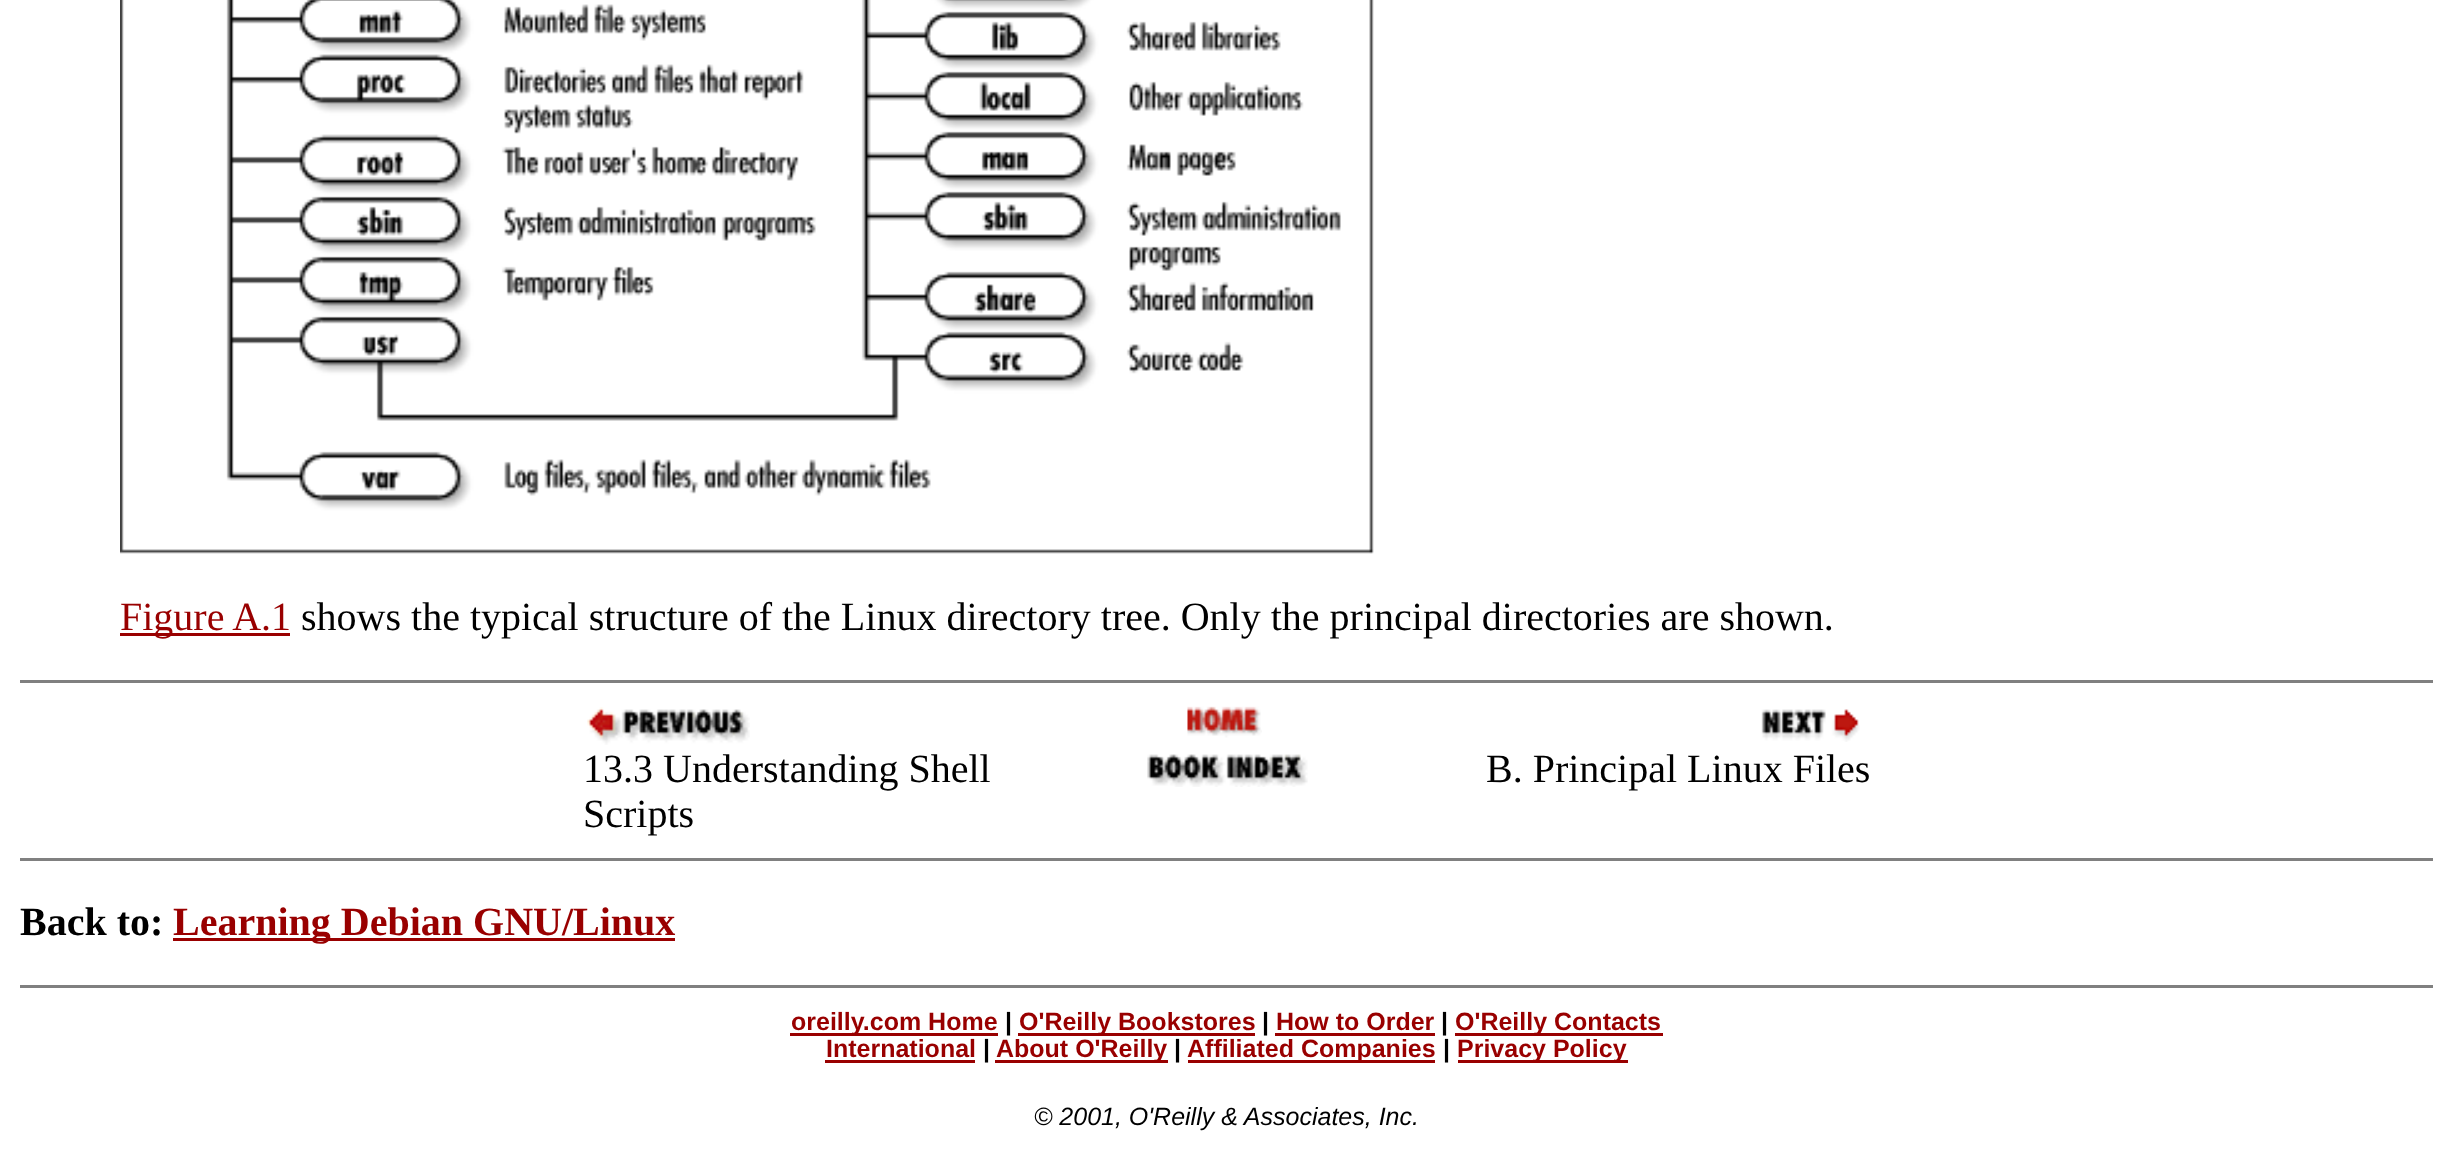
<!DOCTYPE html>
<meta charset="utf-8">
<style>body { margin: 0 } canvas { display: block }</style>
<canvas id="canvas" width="2452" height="1169"></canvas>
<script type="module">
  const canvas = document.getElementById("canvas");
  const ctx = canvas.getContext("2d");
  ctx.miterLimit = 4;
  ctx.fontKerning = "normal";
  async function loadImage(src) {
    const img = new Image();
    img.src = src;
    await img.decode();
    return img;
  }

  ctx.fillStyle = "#ffffff";
  ctx.fillRect(0, 0, 2452, 1169);
  ctx.drawImage(await loadImage("img1.png"), 120, 0, 1254, 554);
  ctx.fillStyle = "#990000";
  ctx.fillRect(120, 633, 170, 3);
  ctx.font = "40px Liberation Serif";
  ctx.fillText("Figure A.1", 120, 630);
  ctx.fillStyle = "#000000";
  ctx.fillText("shows the typical structure of the Linux directory tree. Only the principal directories are shown.", 301, 630);
  ctx.fillStyle = "#808080";
  ctx.fillRect(20, 680, 2413, 3);
  ctx.drawImage(await loadImage("img2.png"), 587, 707, 163, 38);
  ctx.drawImage(await loadImage("img3.png"), 1187, 706, 75, 32);
  ctx.drawImage(await loadImage("img4.png"), 1761, 709, 99, 33);
  ctx.fillStyle = "#000000";
  ctx.fillText("13.3 Understanding Shell", 583, 782);
  ctx.fillText("Scripts", 583, 827);
  ctx.drawImage(await loadImage("img5.png"), 1147, 754, 161, 33);
  ctx.fillText("B. Principal Linux Files", 1486, 782);
  ctx.fillStyle = "#808080";
  ctx.fillRect(20, 858, 2413, 3);
  ctx.font = "bold 40px Liberation Serif";
  ctx.fillStyle = "#000000";
  ctx.fillText("Back to:", 20, 935);
  ctx.fillStyle = "#990000";
  ctx.fillRect(173, 938, 502, 3);
  ctx.fillText("Learning Debian GNU/Linux", 173, 935);
  ctx.fillStyle = "#808080";
  ctx.fillRect(20, 985, 2413, 3);
  ctx.fillStyle = "#990000";
  ctx.fillRect(790, 1033, 208, 3);
  ctx.font = "bold 25px Liberation Sans";
  ctx.fillText("oreilly.com Home", 791, 1030);
  ctx.fillStyle = "#000000";
  ctx.fillText("|", 1005, 1030);
  ctx.fillStyle = "#990000";
  ctx.fillRect(1018, 1033, 237, 3);
  ctx.fillText("O'Reilly Bookstores", 1019, 1030);
  ctx.fillStyle = "#000000";
  ctx.fillText("|", 1262, 1030);
  ctx.fillStyle = "#990000";
  ctx.fillText("How to Order", 1276, 1030);
  ctx.fillRect(1275, 1033, 160, 3);
  ctx.fillStyle = "#000000";
  ctx.fillText("|", 1441, 1030);
  ctx.fillStyle = "#990000";
  ctx.fillRect(1455, 1033, 208, 3);
  ctx.fillText("O'Reilly Contacts", 1455, 1030);
  ctx.fillText("International", 826, 1057);
  ctx.fillRect(825, 1060, 150, 3);
  ctx.fillStyle = "#000000";
  ctx.fillText("|", 983, 1057);
  ctx.fillStyle = "#990000";
  ctx.fillRect(995, 1060, 173, 3);
  ctx.fillText("About O'Reilly", 996, 1057);
  ctx.fillStyle = "#000000";
  ctx.fillText("|", 1174, 1057);
  ctx.fillStyle = "#990000";
  ctx.fillRect(1188, 1060, 247, 3);
  ctx.fillText("Affiliated Companies", 1187, 1057);
  ctx.fillStyle = "#000000";
  ctx.fillText("|", 1443, 1057);
  ctx.fillStyle = "#990000";
  ctx.fillRect(1458, 1060, 170, 3);
  ctx.fillText("Privacy Policy", 1457, 1057);
  ctx.font = "italic 25px Liberation Sans";
  ctx.fillStyle = "#000000";
  ctx.fillText("© 2001, O'Reilly & Associates, Inc.", 1034, 1125);
</script>
